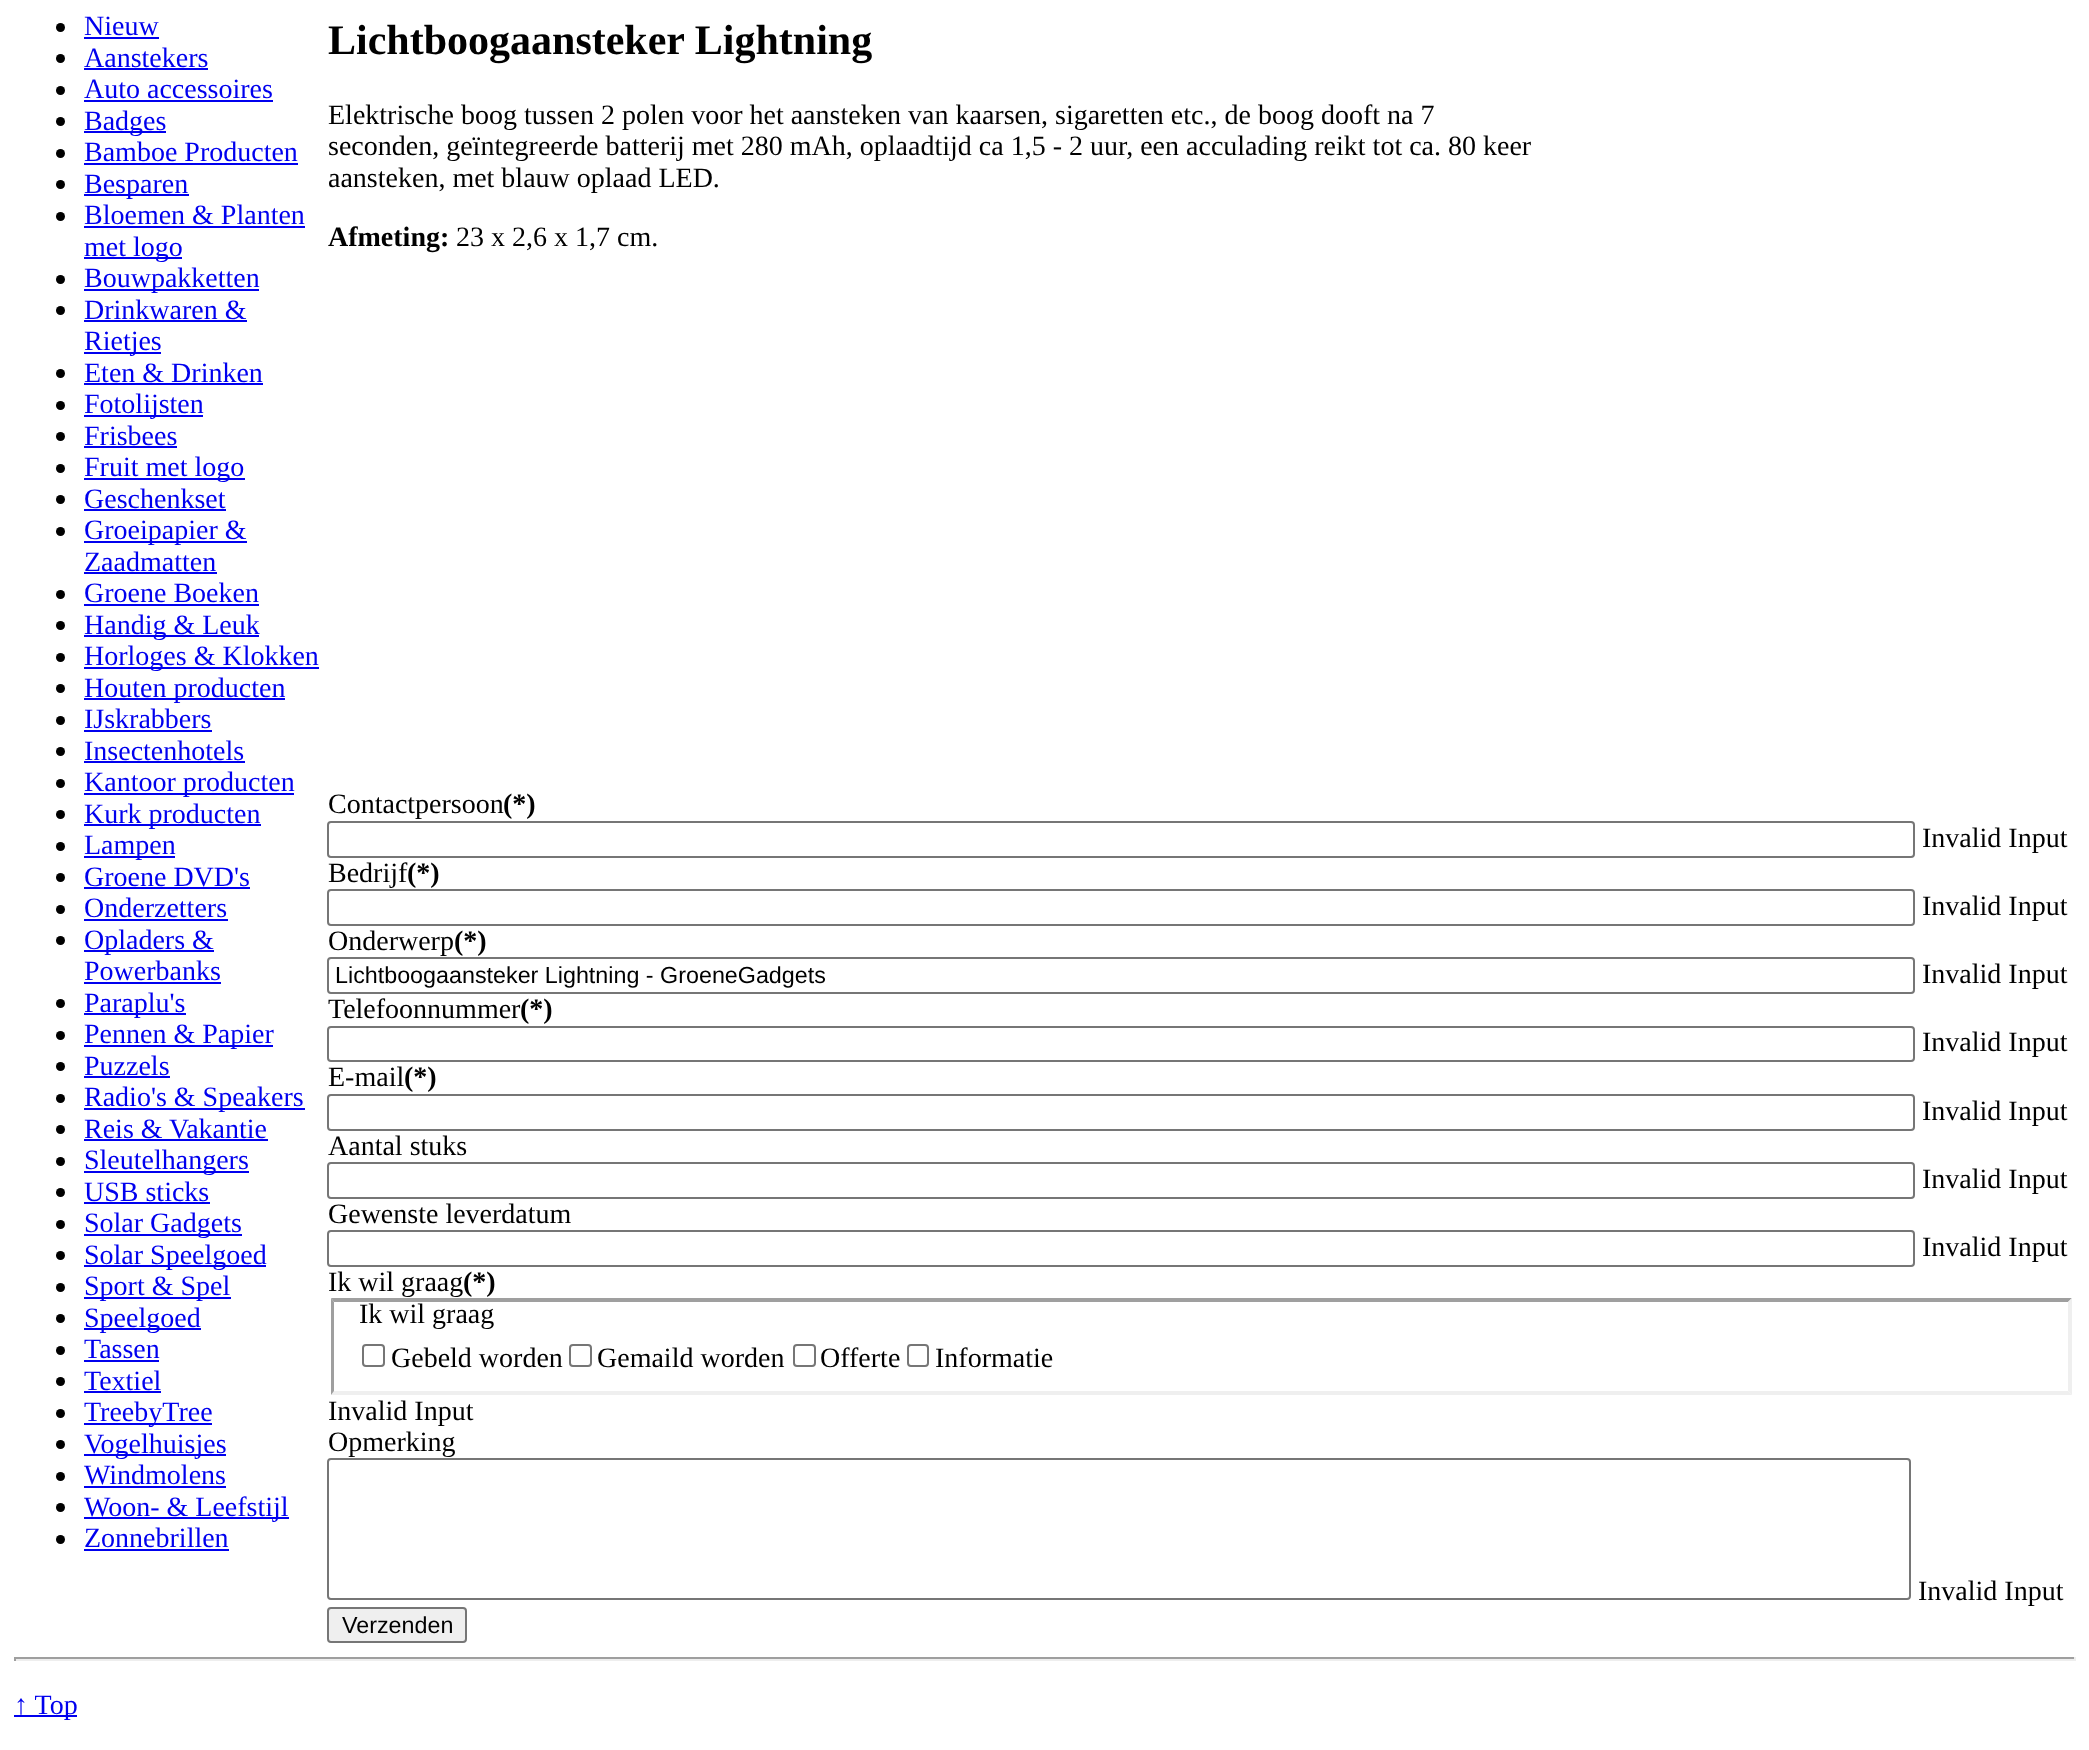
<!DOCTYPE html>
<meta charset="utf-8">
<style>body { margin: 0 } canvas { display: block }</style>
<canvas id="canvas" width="2089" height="1750"></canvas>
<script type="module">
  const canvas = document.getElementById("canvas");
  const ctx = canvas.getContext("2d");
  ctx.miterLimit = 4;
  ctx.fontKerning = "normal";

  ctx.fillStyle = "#ffffff";
  ctx.fillRect(0, 0, 2089, 1750);
  ctx.fillStyle = "#000000";
  ctx.beginPath();
  ctx.arc(60.5, 27.5, 4.5, 0, Math.PI * 2);
  ctx.fill();
  ctx.font = "28px Liberation Serif";
  ctx.fillStyle = "#0000ee";
  ctx.fillText("Nieuw", 84, 35);
  ctx.fillRect(84, 37, 75, 2);
  ctx.fillStyle = "#000000";
  ctx.beginPath();
  ctx.arc(60.5, 58.5, 4.5, 0, Math.PI * 2);
  ctx.fill();
  ctx.fillStyle = "#0000ee";
  ctx.fillText("Aanstekers", 84, 67);
  ctx.fillRect(84, 68, 124, 2);
  ctx.fillStyle = "#000000";
  ctx.beginPath();
  ctx.arc(60.5, 90.5, 4.5, 0, Math.PI * 2);
  ctx.fill();
  ctx.fillStyle = "#0000ee";
  ctx.fillText("Auto accessoires", 84, 98);
  ctx.fillRect(84, 100, 189, 2);
  ctx.fillStyle = "#000000";
  ctx.beginPath();
  ctx.arc(60.5, 121.5, 4.5, 0, Math.PI * 2);
  ctx.fill();
  ctx.fillStyle = "#0000ee";
  ctx.fillRect(84, 131, 82, 2);
  ctx.fillText("Badges", 84, 130);
  ctx.fillStyle = "#000000";
  ctx.beginPath();
  ctx.arc(60.5, 153.5, 4.5, 0, Math.PI * 2);
  ctx.fill();
  ctx.fillStyle = "#0000ee";
  ctx.fillText("Bamboe Producten", 84, 161);
  ctx.fillRect(84, 163, 214, 2);
  ctx.fillStyle = "#000000";
  ctx.beginPath();
  ctx.arc(60.5, 184.5, 4.5, 0, Math.PI * 2);
  ctx.fill();
  ctx.fillStyle = "#0000ee";
  ctx.fillRect(84, 194, 105, 2);
  ctx.fillText("Besparen", 84, 193);
  ctx.fillStyle = "#000000";
  ctx.beginPath();
  ctx.arc(60.5, 216.5, 4.5, 0, Math.PI * 2);
  ctx.fill();
  ctx.fillStyle = "#0000ee";
  ctx.fillText("Bloemen & Planten", 84, 224);
  ctx.fillRect(84, 226, 221, 2);
  ctx.fillRect(84, 257, 98, 2);
  ctx.fillText("met logo", 84, 256);
  ctx.fillStyle = "#000000";
  ctx.beginPath();
  ctx.arc(60.5, 279.5, 4.5, 0, Math.PI * 2);
  ctx.fill();
  ctx.fillStyle = "#0000ee";
  ctx.fillRect(84, 289, 175, 2);
  ctx.fillText("Bouwpakketten", 84, 287);
  ctx.fillStyle = "#000000";
  ctx.beginPath();
  ctx.arc(60.5, 310.5, 4.5, 0, Math.PI * 2);
  ctx.fill();
  ctx.fillStyle = "#0000ee";
  ctx.fillText("Drinkwaren &", 84, 319);
  ctx.fillRect(84, 320, 163, 2);
  ctx.fillRect(84, 352, 77, 2);
  ctx.fillText("Rietjes", 84, 350);
  ctx.fillStyle = "#000000";
  ctx.beginPath();
  ctx.arc(60.5, 373.5, 4.5, 0, Math.PI * 2);
  ctx.fill();
  ctx.fillStyle = "#0000ee";
  ctx.fillText("Eten & Drinken", 84, 382);
  ctx.fillRect(84, 383, 179, 2);
  ctx.fillStyle = "#000000";
  ctx.beginPath();
  ctx.arc(60.5, 405.5, 4.5, 0, Math.PI * 2);
  ctx.fill();
  ctx.fillStyle = "#0000ee";
  ctx.fillRect(84, 415, 119, 2);
  ctx.fillText("Fotolijsten", 84, 413);
  ctx.fillStyle = "#000000";
  ctx.beginPath();
  ctx.arc(60.5, 436.5, 4.5, 0, Math.PI * 2);
  ctx.fill();
  ctx.fillStyle = "#0000ee";
  ctx.fillText("Frisbees", 84, 445);
  ctx.fillRect(84, 446, 93, 2);
  ctx.fillStyle = "#000000";
  ctx.beginPath();
  ctx.arc(60.5, 468.5, 4.5, 0, Math.PI * 2);
  ctx.fill();
  ctx.fillStyle = "#0000ee";
  ctx.fillRect(84, 478, 161, 2);
  ctx.fillText("Fruit met logo", 84, 476);
  ctx.fillStyle = "#000000";
  ctx.beginPath();
  ctx.arc(60.5, 499.5, 4.5, 0, Math.PI * 2);
  ctx.fill();
  ctx.fillStyle = "#0000ee";
  ctx.fillText("Geschenkset", 84, 508);
  ctx.fillRect(84, 509, 142, 2);
  ctx.fillStyle = "#000000";
  ctx.beginPath();
  ctx.arc(60.5, 531.5, 4.5, 0, Math.PI * 2);
  ctx.fill();
  ctx.fillStyle = "#0000ee";
  ctx.fillRect(84, 541, 163, 2);
  ctx.fillText("Groeipapier &", 84, 539);
  ctx.fillText("Zaadmatten", 84, 571);
  ctx.fillRect(84, 572, 133, 2);
  ctx.fillStyle = "#000000";
  ctx.beginPath();
  ctx.arc(60.5, 594.5, 4.5, 0, Math.PI * 2);
  ctx.fill();
  ctx.fillStyle = "#0000ee";
  ctx.fillText("Groene Boeken", 84, 602);
  ctx.fillRect(84, 604, 175, 2);
  ctx.fillStyle = "#000000";
  ctx.beginPath();
  ctx.arc(60.5, 625.5, 4.5, 0, Math.PI * 2);
  ctx.fill();
  ctx.fillStyle = "#0000ee";
  ctx.fillRect(84, 635, 175, 2);
  ctx.fillText("Handig & Leuk", 84, 634);
  ctx.fillStyle = "#000000";
  ctx.beginPath();
  ctx.arc(60.5, 657.5, 4.5, 0, Math.PI * 2);
  ctx.fill();
  ctx.fillStyle = "#0000ee";
  ctx.fillRect(84, 667, 235, 2);
  ctx.fillText("Horloges & Klokken", 84, 665);
  ctx.fillStyle = "#000000";
  ctx.beginPath();
  ctx.arc(60.5, 688.5, 4.5, 0, Math.PI * 2);
  ctx.fill();
  ctx.fillStyle = "#0000ee";
  ctx.fillRect(84, 698, 201, 2);
  ctx.fillText("Houten producten", 84, 697);
  ctx.fillStyle = "#000000";
  ctx.beginPath();
  ctx.arc(60.5, 720.5, 4.5, 0, Math.PI * 2);
  ctx.fill();
  ctx.fillStyle = "#0000ee";
  ctx.fillText("IJskrabbers", 84, 728);
  ctx.fillRect(84, 730, 128, 2);
  ctx.fillStyle = "#000000";
  ctx.beginPath();
  ctx.arc(60.5, 751.5, 4.5, 0, Math.PI * 2);
  ctx.fill();
  ctx.fillStyle = "#0000ee";
  ctx.fillText("Insectenhotels", 84, 760);
  ctx.fillRect(84, 761, 161, 2);
  ctx.fillStyle = "#000000";
  ctx.beginPath();
  ctx.arc(60.5, 783.5, 4.5, 0, Math.PI * 2);
  ctx.fill();
  ctx.fillStyle = "#0000ee";
  ctx.fillRect(84, 793, 210, 2);
  ctx.fillText("Kantoor producten", 84, 791);
  ctx.fillStyle = "#000000";
  ctx.beginPath();
  ctx.arc(60.5, 814.5, 4.5, 0, Math.PI * 2);
  ctx.fill();
  ctx.fillStyle = "#0000ee";
  ctx.fillRect(84, 824, 177, 2);
  ctx.fillText("Kurk producten", 84, 823);
  ctx.fillStyle = "#000000";
  ctx.beginPath();
  ctx.arc(60.5, 846.5, 4.5, 0, Math.PI * 2);
  ctx.fill();
  ctx.fillStyle = "#0000ee";
  ctx.fillRect(84, 856, 91, 2);
  ctx.fillText("Lampen", 84, 854);
  ctx.fillStyle = "#000000";
  ctx.beginPath();
  ctx.arc(60.5, 877.5, 4.5, 0, Math.PI * 2);
  ctx.fill();
  ctx.fillStyle = "#0000ee";
  ctx.fillText("Groene DVD's", 84, 886);
  ctx.fillRect(84, 887, 166, 2);
  ctx.fillStyle = "#000000";
  ctx.beginPath();
  ctx.arc(60.5, 909.5, 4.5, 0, Math.PI * 2);
  ctx.fill();
  ctx.fillStyle = "#0000ee";
  ctx.fillText("Onderzetters", 84, 917);
  ctx.fillRect(84, 919, 144, 2);
  ctx.fillStyle = "#000000";
  ctx.beginPath();
  ctx.arc(60.5, 940.5, 4.5, 0, Math.PI * 2);
  ctx.fill();
  ctx.fillStyle = "#0000ee";
  ctx.fillRect(84, 950, 130, 2);
  ctx.fillText("Opladers &", 84, 949);
  ctx.fillText("Powerbanks", 84, 980);
  ctx.fillRect(84, 982, 137, 2);
  ctx.fillStyle = "#000000";
  ctx.beginPath();
  ctx.arc(60.5, 1003.5, 4.5, 0, Math.PI * 2);
  ctx.fill();
  ctx.fillStyle = "#0000ee";
  ctx.fillRect(84, 1013, 102, 2);
  ctx.fillText("Paraplu's", 84, 1012);
  ctx.fillStyle = "#000000";
  ctx.beginPath();
  ctx.arc(60.5, 1035.5, 4.5, 0, Math.PI * 2);
  ctx.fill();
  ctx.fillStyle = "#0000ee";
  ctx.fillRect(84, 1045, 189, 2);
  ctx.fillText("Pennen & Papier", 84, 1043);
  ctx.fillStyle = "#000000";
  ctx.beginPath();
  ctx.arc(60.5, 1066.5, 4.5, 0, Math.PI * 2);
  ctx.fill();
  ctx.fillStyle = "#0000ee";
  ctx.fillText("Puzzels", 84, 1075);
  ctx.fillRect(84, 1076, 86, 2);
  ctx.fillStyle = "#000000";
  ctx.beginPath();
  ctx.arc(60.5, 1098.5, 4.5, 0, Math.PI * 2);
  ctx.fill();
  ctx.fillStyle = "#0000ee";
  ctx.fillRect(84, 1108, 221, 2);
  ctx.fillText("Radio's & Speakers", 84, 1106);
  ctx.fillStyle = "#000000";
  ctx.beginPath();
  ctx.arc(60.5, 1129.5, 4.5, 0, Math.PI * 2);
  ctx.fill();
  ctx.fillStyle = "#0000ee";
  ctx.fillText("Reis & Vakantie", 84, 1138);
  ctx.fillRect(84, 1139, 184, 2);
  ctx.fillStyle = "#000000";
  ctx.beginPath();
  ctx.arc(60.5, 1161.5, 4.5, 0, Math.PI * 2);
  ctx.fill();
  ctx.fillStyle = "#0000ee";
  ctx.fillRect(84, 1171, 165, 2);
  ctx.fillText("Sleutelhangers", 84, 1169);
  ctx.fillStyle = "#000000";
  ctx.beginPath();
  ctx.arc(60.5, 1192.5, 4.5, 0, Math.PI * 2);
  ctx.fill();
  ctx.fillStyle = "#0000ee";
  ctx.fillText("USB sticks", 84, 1201);
  ctx.fillRect(84, 1202, 126, 2);
  ctx.fillStyle = "#000000";
  ctx.beginPath();
  ctx.arc(60.5, 1224.5, 4.5, 0, Math.PI * 2);
  ctx.fill();
  ctx.fillStyle = "#0000ee";
  ctx.fillRect(84, 1234, 158, 2);
  ctx.fillText("Solar Gadgets", 84, 1232);
  ctx.fillStyle = "#000000";
  ctx.beginPath();
  ctx.arc(60.5, 1255.5, 4.5, 0, Math.PI * 2);
  ctx.fill();
  ctx.fillStyle = "#0000ee";
  ctx.fillRect(84, 1265, 182, 2);
  ctx.fillText("Solar Speelgoed", 84, 1264);
  ctx.fillStyle = "#000000";
  ctx.beginPath();
  ctx.arc(60.5, 1287.5, 4.5, 0, Math.PI * 2);
  ctx.fill();
  ctx.fillStyle = "#0000ee";
  ctx.fillRect(84, 1297, 147, 2);
  ctx.fillText("Sport & Spel", 84, 1295);
  ctx.fillStyle = "#000000";
  ctx.beginPath();
  ctx.arc(60.5, 1318.5, 4.5, 0, Math.PI * 2);
  ctx.fill();
  ctx.fillStyle = "#0000ee";
  ctx.fillRect(84, 1328, 117, 2);
  ctx.fillText("Speelgoed", 84, 1327);
  ctx.fillStyle = "#000000";
  ctx.beginPath();
  ctx.arc(60.5, 1350.5, 4.5, 0, Math.PI * 2);
  ctx.fill();
  ctx.fillStyle = "#0000ee";
  ctx.fillText("Tassen", 84, 1358);
  ctx.fillRect(84, 1360, 75, 2);
  ctx.fillStyle = "#000000";
  ctx.beginPath();
  ctx.arc(60.5, 1381.5, 4.5, 0, Math.PI * 2);
  ctx.fill();
  ctx.fillStyle = "#0000ee";
  ctx.fillText("Textiel", 84, 1390);
  ctx.fillRect(84, 1391, 77, 2);
  ctx.fillStyle = "#000000";
  ctx.beginPath();
  ctx.arc(60.5, 1413.5, 4.5, 0, Math.PI * 2);
  ctx.fill();
  ctx.fillStyle = "#0000ee";
  ctx.fillRect(84, 1423, 128, 2);
  ctx.fillText("TreebyTree", 84, 1421);
  ctx.fillStyle = "#000000";
  ctx.beginPath();
  ctx.arc(60.5, 1444.5, 4.5, 0, Math.PI * 2);
  ctx.fill();
  ctx.fillStyle = "#0000ee";
  ctx.fillRect(84, 1454, 142, 2);
  ctx.fillText("Vogelhuisjes", 84, 1453);
  ctx.fillStyle = "#000000";
  ctx.beginPath();
  ctx.arc(60.5, 1476.5, 4.5, 0, Math.PI * 2);
  ctx.fill();
  ctx.fillStyle = "#0000ee";
  ctx.fillText("Windmolens", 84, 1484);
  ctx.fillRect(84, 1486, 142, 2);
  ctx.fillStyle = "#000000";
  ctx.beginPath();
  ctx.arc(60.5, 1507.5, 4.5, 0, Math.PI * 2);
  ctx.fill();
  ctx.fillStyle = "#0000ee";
  ctx.fillRect(84, 1517, 205, 2);
  ctx.fillText("Woon- & Leefstijl", 84, 1516);
  ctx.fillStyle = "#000000";
  ctx.beginPath();
  ctx.arc(60.5, 1539.5, 4.5, 0, Math.PI * 2);
  ctx.fill();
  ctx.fillStyle = "#0000ee";
  ctx.fillText("Zonnebrillen", 84, 1547);
  ctx.fillRect(84, 1549, 145, 2);
  ctx.font = "bold 42px Liberation Serif";
  ctx.fillStyle = "#000000";
  ctx.fillText("Lichtboogaansteker Lightning", 328, 54);
  ctx.font = "28px Liberation Serif";
  ctx.fillText("Elektrische boog tussen 2 polen voor het aansteken van kaarsen, sigaretten etc., de boog dooft na 7", 328, 124);
  ctx.fillText("seconden, geïntegreerde batterij met 280 mAh, oplaadtijd ca 1,5 - 2 uur, een acculading reikt tot ca. 80 keer", 328, 155);
  ctx.fillText("aansteken, met blauw oplaad LED.", 328, 187);
  ctx.font = "bold 28px Liberation Serif";
  ctx.fillText("Afmeting:", 328, 246);
  ctx.font = "28px Liberation Serif";
  ctx.fillText("23 x 2,6 x 1,7 cm.", 456, 246);
  ctx.fillText("Contactpersoon", 328, 813);
  ctx.font = "bold 28px Liberation Serif";
  ctx.fillText("(*)", 503, 813);
  ctx.beginPath();
  ctx.roundRect(328, 822, 1586, 35, 3);
  ctx.strokeStyle = "#767676";
  ctx.lineWidth = 2;
  ctx.stroke();
  ctx.font = "28px Liberation Serif";
  ctx.fillText("Invalid Input", 1922, 847);
  ctx.fillText("Bedrijf", 328, 882);
  ctx.font = "bold 28px Liberation Serif";
  ctx.fillText("(*)", 407, 882);
  ctx.beginPath();
  ctx.roundRect(328, 890, 1586, 35, 3);
  ctx.stroke();
  ctx.font = "28px Liberation Serif";
  ctx.fillText("Invalid Input", 1922, 915);
  ctx.fillText("Onderwerp", 328, 950);
  ctx.font = "bold 28px Liberation Serif";
  ctx.fillText("(*)", 454, 950);
  ctx.beginPath();
  ctx.roundRect(328, 958, 1586, 35, 3);
  ctx.stroke();
  ctx.font = "23.3px Liberation Sans";
  ctx.fillText("Lichtboogaansteker Lightning - GroeneGadgets", 335, 983);
  ctx.font = "28px Liberation Serif";
  ctx.fillText("Invalid Input", 1922, 983);
  ctx.fillText("Telefoonnummer", 328, 1018);
  ctx.font = "bold 28px Liberation Serif";
  ctx.fillText("(*)", 520, 1018);
  ctx.beginPath();
  ctx.roundRect(328, 1027, 1586, 34, 3);
  ctx.stroke();
  ctx.font = "28px Liberation Serif";
  ctx.fillText("Invalid Input", 1922, 1051);
  ctx.fillText("E-mail", 328, 1086);
  ctx.font = "bold 28px Liberation Serif";
  ctx.fillText("(*)", 404, 1086);
  ctx.beginPath();
  ctx.roundRect(328, 1095, 1586, 35, 3);
  ctx.stroke();
  ctx.font = "28px Liberation Serif";
  ctx.fillText("Invalid Input", 1922, 1120);
  ctx.fillText("Aantal stuks", 328, 1155);
  ctx.beginPath();
  ctx.roundRect(328, 1163, 1586, 35, 3);
  ctx.stroke();
  ctx.fillText("Invalid Input", 1922, 1188);
  ctx.fillText("Gewenste leverdatum", 328, 1223);
  ctx.beginPath();
  ctx.roundRect(328, 1231, 1586, 35, 3);
  ctx.stroke();
  ctx.fillText("Invalid Input", 1922, 1256);
  ctx.fillText("Ik wil graag", 328, 1291);
  ctx.font = "bold 28px Liberation Serif";
  ctx.fillText("(*)", 463, 1291);
  ctx.fillStyle = "#9f9f9f";
  ctx.beginPath();
  ctx.moveTo(331, 1298);
  ctx.lineTo(2072, 1298);
  ctx.lineTo(2068, 1302);
  ctx.lineTo(334, 1302);
  ctx.closePath();
  ctx.fill();
  ctx.fillStyle = "#efefef";
  ctx.beginPath();
  ctx.moveTo(2072, 1298);
  ctx.lineTo(2072, 1395);
  ctx.lineTo(2068, 1391);
  ctx.lineTo(2068, 1302);
  ctx.closePath();
  ctx.fill();
  ctx.beginPath();
  ctx.moveTo(2072, 1395);
  ctx.lineTo(331, 1395);
  ctx.lineTo(334, 1391);
  ctx.lineTo(2068, 1391);
  ctx.closePath();
  ctx.fill();
  ctx.fillStyle = "#9f9f9f";
  ctx.beginPath();
  ctx.moveTo(331, 1395);
  ctx.lineTo(331, 1298);
  ctx.lineTo(334, 1302);
  ctx.lineTo(334, 1391);
  ctx.closePath();
  ctx.fill();
  ctx.font = "28px Liberation Serif";
  ctx.fillStyle = "#000000";
  ctx.fillText("Ik wil graag", 359, 1323);
  ctx.beginPath();
  ctx.roundRect(363, 1345, 21, 21, 3);
  ctx.stroke();
  ctx.fillText("Gebeld worden", 391, 1367);
  ctx.beginPath();
  ctx.roundRect(570, 1345, 21, 21, 3);
  ctx.stroke();
  ctx.fillText("Gemaild worden", 597, 1367);
  ctx.beginPath();
  ctx.roundRect(794, 1345, 21, 21, 3);
  ctx.stroke();
  ctx.fillText("Offerte", 820, 1367);
  ctx.beginPath();
  ctx.roundRect(908, 1345, 20, 21, 3);
  ctx.stroke();
  ctx.fillText("Informatie", 935, 1367);
  ctx.fillText("Invalid Input", 328, 1420);
  ctx.fillText("Opmerking", 328, 1451);
  ctx.beginPath();
  ctx.roundRect(328, 1459, 1582, 140, 3);
  ctx.stroke();
  ctx.fillText("Invalid Input", 1918, 1600);
  ctx.fillStyle = "#efefef";
  ctx.beginPath();
  ctx.roundRect(328, 1608, 138, 34, 3);
  ctx.fill();
  ctx.stroke();
  ctx.font = "23.3px Liberation Sans";
  ctx.fillStyle = "#000000";
  ctx.fillText("Verzenden", 342, 1633);
  ctx.fillStyle = "#9f9f9f";
  ctx.fillRect(14, 1657, 2062, 2);
  ctx.fillStyle = "#eeeeee";
  ctx.fillRect(2074, 1657, 2, 4);
  ctx.fillRect(14, 1659, 2062, 2);
  ctx.fillStyle = "#9f9f9f";
  ctx.fillRect(14, 1657, 2, 4);
  ctx.fillStyle = "#0000ee";
  ctx.fillRect(14, 1715, 63, 2);
  ctx.font = "28px Liberation Serif";
  ctx.fillText("↑ Top", 14, 1714);
</script>
